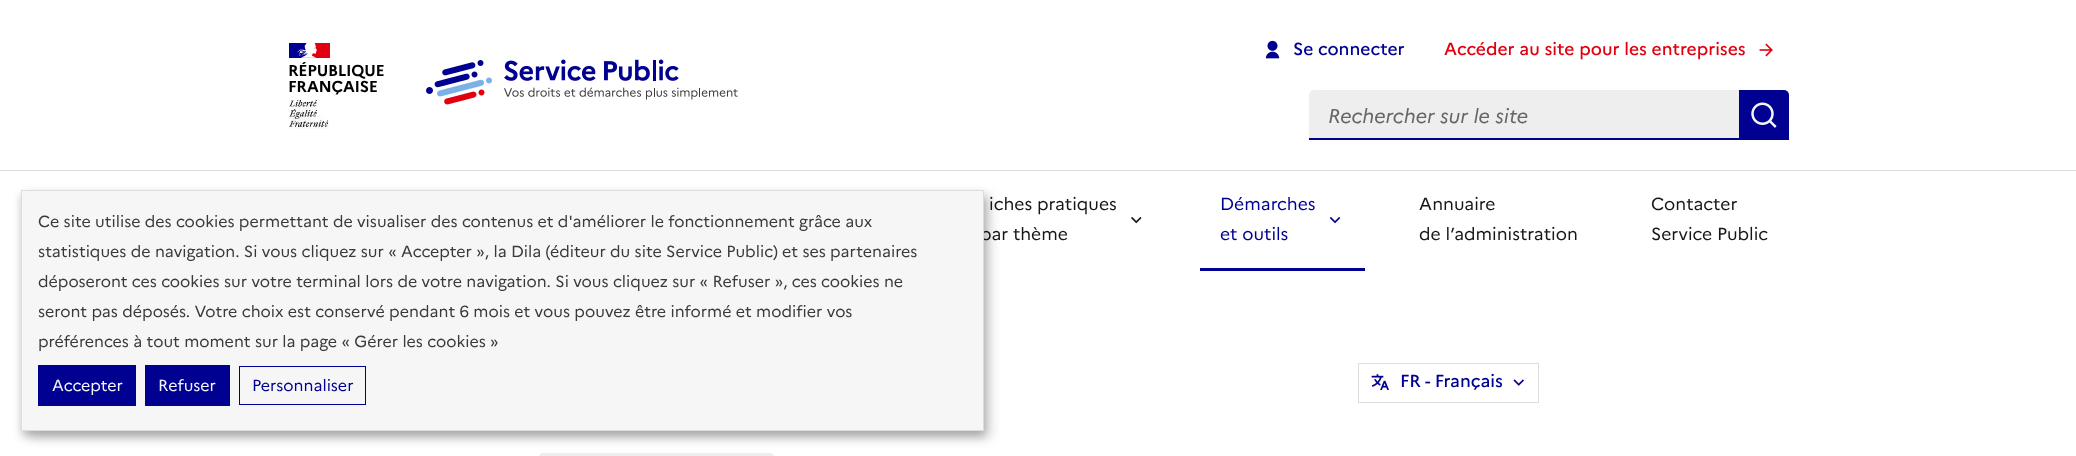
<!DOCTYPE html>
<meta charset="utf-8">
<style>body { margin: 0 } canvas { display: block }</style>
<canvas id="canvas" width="2076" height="456"></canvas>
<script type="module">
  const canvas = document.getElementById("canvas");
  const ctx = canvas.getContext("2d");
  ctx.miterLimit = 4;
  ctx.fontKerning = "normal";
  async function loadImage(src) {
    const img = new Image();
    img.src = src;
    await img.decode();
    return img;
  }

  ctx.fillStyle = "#ffffff";
  ctx.fillRect(0, 0, 2076, 456);
  ctx.fillStyle = "#000091";
  ctx.fillRect(289, 43, 21, 15);
  ctx.fillStyle = "#e1000f";
  ctx.fillRect(310, 43, 20, 15);
  ctx.drawImage(await loadImage("img1.png"), 297, 43, 20, 15);
  ctx.letterSpacing = "-0.25px";
  ctx.font = "bold 15.75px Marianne";
  ctx.fillStyle = "#000000";
  ctx.fillText("RÉPUBLIQUE", 288, 76);
  ctx.fillText("FRANÇAISE", 288, 92);
  ctx.drawImage(await loadImage("img2.png"), 289, 100, 40, 29);
  ctx.drawImage(await loadImage("img3.png"), 426, 59, 312, 46);
  ctx.drawImage(await loadImage("img4.png"), 1265, 40, 15, 19);
  ctx.letterSpacing = "0px";
  ctx.font = "500 17.5px Marianne";
  ctx.fillStyle = "#000091";
  ctx.fillText("Se connecter", 1293, 55);
  ctx.fillStyle = "#e1000f";
  ctx.fillText("Accéder au site pour les entreprises", 1444, 55);
  ctx.drawImage(await loadImage("img5.png"), 1759, 43, 14, 14);
  ctx.fillStyle = "#eeeeee";
  ctx.beginPath();
  ctx.roundRect(1309, 90, 430, 50, [5, 0, 0, 0]);
  ctx.fill();
  ctx.fillStyle = "#000091";
  ctx.fillRect(1309, 138, 430, 2);
  ctx.font = "italic 20px Marianne";
  ctx.fillStyle = "#666666";
  ctx.fillText("Rechercher sur le site", 1328, 123);
  ctx.fillStyle = "#000091";
  ctx.beginPath();
  ctx.roundRect(1739, 90, 50, 50, [0, 5, 0, 0]);
  ctx.fill();
  ctx.drawImage(await loadImage("img6.png"), 1751, 102, 26, 26);
  ctx.fillStyle = "#dddddd";
  ctx.fillRect(0, 170, 2076, 1);
  ctx.font = "17.5px Marianne";
  ctx.fillStyle = "#161616";
  ctx.fillText("iches pratiques", 989, 210);
  ctx.drawImage(await loadImage("img7.png"), 1131, 217, 11, 7);
  ctx.fillText("par thème", 980, 240);
  ctx.fillStyle = "#000091";
  ctx.fillText("Démarches", 1220, 210);
  ctx.drawImage(await loadImage("img8.png"), 1329, 217, 12, 7);
  ctx.fillText("et outils", 1220, 240);
  ctx.fillRect(1200, 268, 165, 3);
  ctx.fillStyle = "#161616";
  ctx.fillText("Annuaire", 1419, 210);
  ctx.fillText("de l’administration", 1419, 240);
  ctx.fillText("Contacter", 1651, 210);
  ctx.fillText("Service Public", 1651, 240);
  ctx.fillStyle = "#eeeeee";
  ctx.beginPath();
  ctx.roundRect(539, 453, 235, 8, 5);
  ctx.fill();
  ctx.fillStyle = "rgba(0, 0, 0, 0.19)";
  ctx.filter = "blur(6px)";
  ctx.beginPath();
  ctx.rect(28, 196, 962, 242);
  ctx.fill();
  ctx.filter = "none";
  ctx.fillStyle = "rgba(0, 0, 0, 0.2)";
  ctx.filter = "blur(4px)";
  ctx.beginPath();
  ctx.rect(21, 195, 963, 241);
  ctx.fill();
  ctx.filter = "none";
  ctx.fillStyle = "#f6f6f6";
  ctx.beginPath();
  ctx.rect(21.5, 190.5, 962, 240);
  ctx.fill();
  ctx.strokeStyle = "#dddddd";
  ctx.stroke();
  ctx.font = "16px Marianne";
  ctx.fillStyle = "#3a3a3a";
  ctx.fillText("Ce site utilise des cookies permettant de visualiser des contenus et d'améliorer le fonctionnement grâce aux", 38, 227);
  ctx.fillText("statistiques de navigation. Si vous cliquez sur « Accepter », la Dila (éditeur du site Service Public) et ses partenaires", 38, 257);
  ctx.fillText("déposeront ces cookies sur votre terminal lors de votre navigation. Si vous cliquez sur « Refuser », ces cookies ne", 38, 287);
  ctx.fillText("seront pas déposés. Votre choix est conservé pendant 6 mois et vous pouvez être informé et modifier vos", 38, 317);
  ctx.fillText("préférences à tout moment sur la page « Gérer les cookies »", 38, 347);
  ctx.fillStyle = "#000091";
  ctx.fillRect(38, 365, 98, 41);
  ctx.fillStyle = "#f5f5fe";
  ctx.fillText("Accepter", 52, 391);
  ctx.fillStyle = "#000091";
  ctx.fillRect(145, 365, 85, 41);
  ctx.fillStyle = "#f5f5fe";
  ctx.fillText("Refuser", 158, 391);
  ctx.strokeStyle = "#000091";
  ctx.strokeRect(239.5, 366.5, 126, 38);
  ctx.fillStyle = "#000091";
  ctx.fillText("Personnaliser", 252, 391);
  ctx.strokeStyle = "#dddddd";
  ctx.strokeRect(1358.5, 363.5, 180, 39);
  ctx.drawImage(await loadImage("img9.png"), 1371, 374, 18, 16);
  ctx.font = "500 17.5px Marianne";
  ctx.fillText("FR - Français", 1400, 387);
  ctx.drawImage(await loadImage("img10.png"), 1513, 379, 11, 7);
</script>
